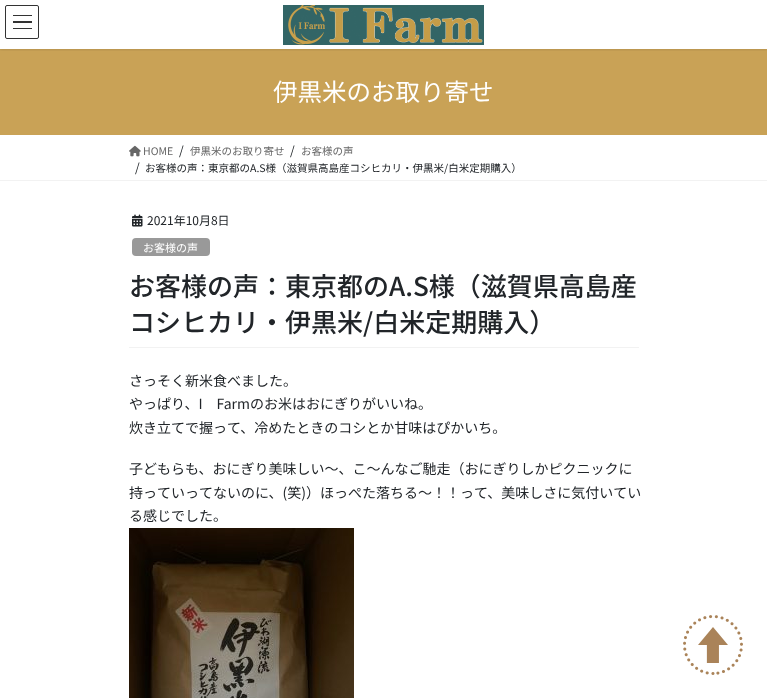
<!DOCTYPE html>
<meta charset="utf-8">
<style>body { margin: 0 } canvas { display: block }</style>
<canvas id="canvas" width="767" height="698"></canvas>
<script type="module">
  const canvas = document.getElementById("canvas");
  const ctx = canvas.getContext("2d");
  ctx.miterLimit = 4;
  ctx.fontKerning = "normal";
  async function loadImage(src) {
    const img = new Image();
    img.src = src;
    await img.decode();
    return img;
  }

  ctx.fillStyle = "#ffffff";
  ctx.fillRect(0, 0, 767, 698);
  ctx.fillStyle = "#c9a256";
  ctx.fillRect(0, 49, 767, 86);
  ctx.save();
  ctx.beginPath();
  ctx.rect(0, 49, 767, 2);
  ctx.clip();
  ctx.fillStyle = "rgba(0, 0, 0, 0.1)";
  ctx.filter = "blur(1.5px)";
  ctx.beginPath();
  ctx.rect(0, 1, 767, 49);
  ctx.fill();
  ctx.filter = "none";
  ctx.restore();
  ctx.drawImage(await loadImage("img1.png"), 283, 5, 201, 40);
  ctx.fillStyle = "#333333";
  ctx.fillRect(13, 15, 19, 1);
  ctx.fillRect(13, 21, 19, 2);
  ctx.fillRect(13, 28, 19, 1);
  ctx.beginPath();
  ctx.roundRect(5.5, 5.5, 33, 33, 1.5);
  ctx.strokeStyle = "#333333";
  ctx.stroke();
  ctx.font = "24.5px Noto Sans JP";
  ctx.fillStyle = "#ffffff";
  ctx.fillText("伊黒米のお取り寄せ", 273, 101);
  ctx.fillStyle = "#f2f2f2";
  ctx.fillRect(0, 180, 767, 1);
  ctx.drawImage(await loadImage("img2.png"), 129, 145, 12, 12);
  ctx.font = "10.5px Noto Sans JP";
  ctx.fillStyle = "#666666";
  ctx.fillText("HOME", 143, 155);
  ctx.font = "12px Noto Sans JP";
  ctx.fillStyle = "#212529";
  ctx.fillText("/", 179, 155);
  ctx.font = "10.5px Noto Sans JP";
  ctx.fillStyle = "#666666";
  ctx.fillText("伊黒米のお取り寄せ", 190, 155);
  ctx.font = "12px Noto Sans JP";
  ctx.fillStyle = "#212529";
  ctx.fillText("/", 290, 155);
  ctx.font = "10.5px Noto Sans JP";
  ctx.fillStyle = "#666666";
  ctx.fillText("お客様の声", 301, 155);
  ctx.font = "12px Noto Sans JP";
  ctx.fillStyle = "#212529";
  ctx.fillText("/", 135, 172);
  ctx.font = "10.5px Noto Sans JP";
  ctx.fillText("お客様の声：東京都のA.S様（滋賀県高島産コシヒカリ・伊黒米/白米定期購入）", 145, 172);
  ctx.fillStyle = "#f2f2f2";
  ctx.fillRect(129, 347, 510, 1);
  ctx.drawImage(await loadImage("img3.png"), 132, 214, 11, 13);
  ctx.font = "12px Noto Sans JP";
  ctx.fillStyle = "#212529";
  ctx.fillText("2021年10月8日", 147, 225);
  ctx.fillStyle = "#999999";
  ctx.beginPath();
  ctx.roundRect(132, 238, 78, 18, 4);
  ctx.fill();
  ctx.font = "11px Noto Sans JP";
  ctx.fillStyle = "#ffffff";
  ctx.fillText("お客様の声", 143, 252);
  ctx.font = "500 26px Noto Sans JP";
  ctx.fillStyle = "#212529";
  ctx.fillText("お客様の声：東京都のA.S様（滋賀県高島産", 129, 296);
  ctx.fillText("コシヒカリ・伊黒米/白米定期購入）", 129, 332);
  ctx.font = "14px Noto Sans JP";
  ctx.fillText("さっそく新米食べました。", 129, 386);
  ctx.fillText("やっぱり、I　Farmのお米はおにぎりがいいね。", 129, 409);
  ctx.fillText("炊き立てで握って、冷めたときのコシとか甘味はぴかいち。", 129, 433);
  ctx.fillText("子どもらも、おにぎり美味しい～、こ～んなご馳走（おにぎりしかピクニックに", 129, 474);
  ctx.fillText("持っていってないのに、(笑)）ほっぺた落ちる～！！って、美味しさに気付いてい", 129, 498);
  ctx.fillText("る感じでした。", 129, 521);
  ctx.drawImage(await loadImage("img4.png"), 129, 528, 225, 170);
  ctx.drawImage(await loadImage("img5.png"), 683, 615, 60, 60);
</script>
